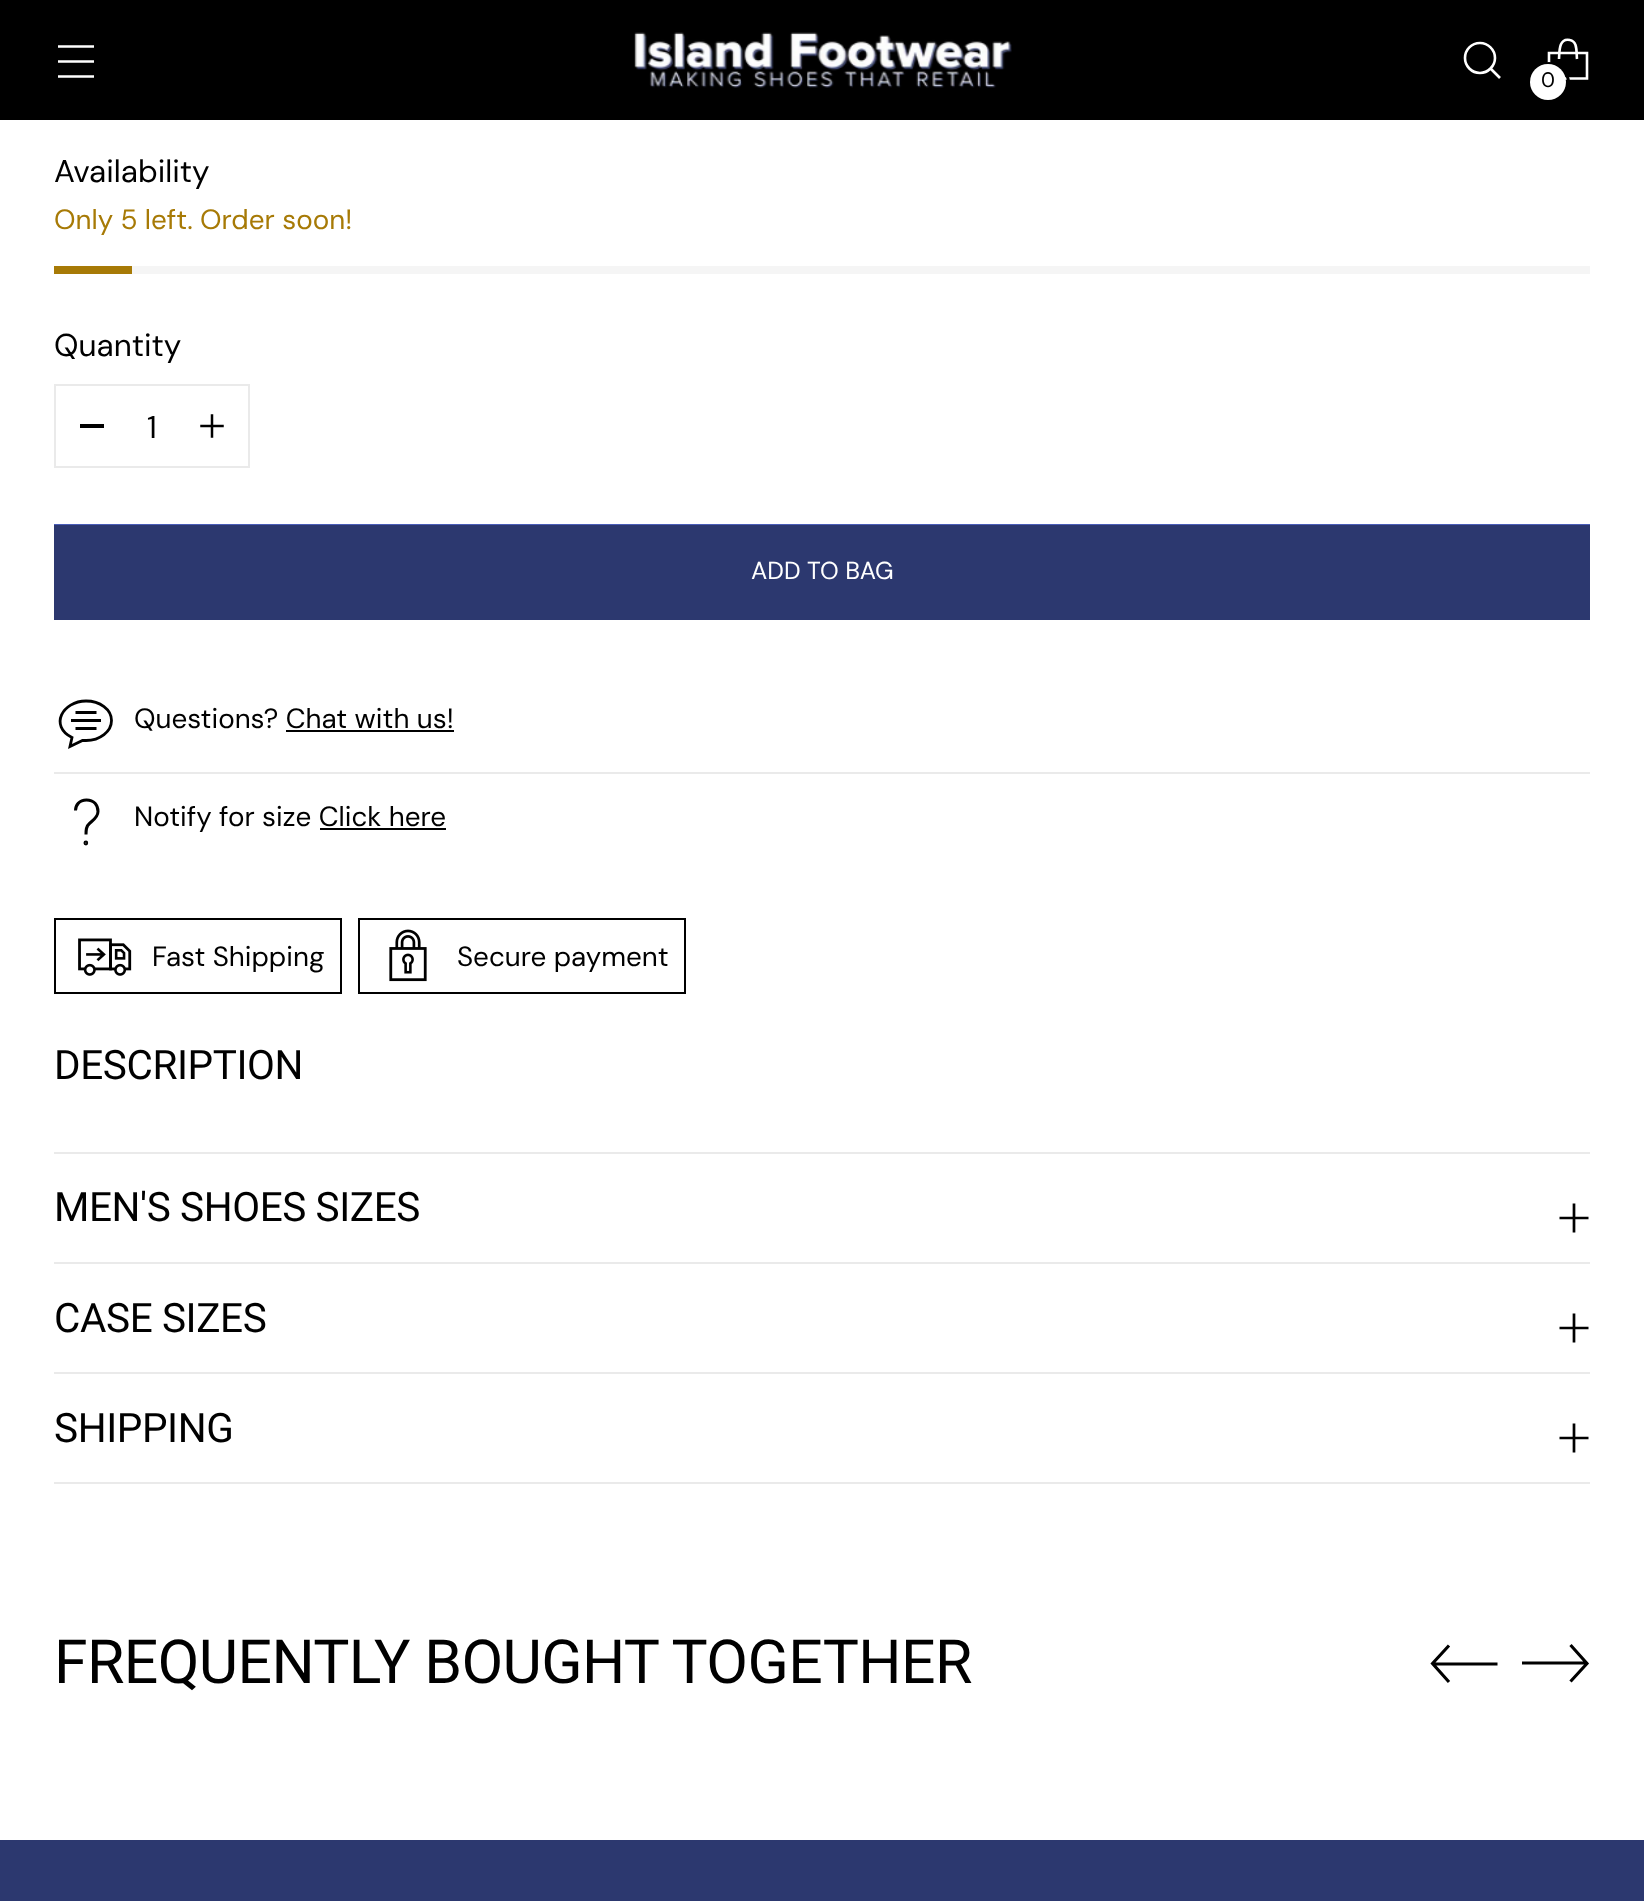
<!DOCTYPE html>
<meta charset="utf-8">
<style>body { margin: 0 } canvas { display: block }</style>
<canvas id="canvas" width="1644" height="1901"></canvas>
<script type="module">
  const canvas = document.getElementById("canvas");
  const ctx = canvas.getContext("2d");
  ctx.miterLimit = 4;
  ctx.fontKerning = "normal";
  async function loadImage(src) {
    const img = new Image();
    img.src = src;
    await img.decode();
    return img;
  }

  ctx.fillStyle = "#ffffff";
  ctx.fillRect(0, 0, 1644, 1901);
  ctx.fillStyle = "#000000";
  ctx.fillRect(0, 0, 1644, 120);
  ctx.beginPath();
  ctx.moveTo(58, 61.5);
  ctx.lineTo(94, 61.5);
  ctx.moveTo(58, 46.5);
  ctx.lineTo(94, 46.5);
  ctx.moveTo(58, 76.5);
  ctx.lineTo(94, 76.5);
  ctx.strokeStyle = "#ffffff";
  ctx.lineWidth = 2.6;
  ctx.stroke();
  ctx.drawImage(await loadImage("img1.png"), 634, 32, 378, 56);
  ctx.beginPath();
  ctx.moveTo(1480, 73);
  ctx.bezierCurveTo(1488, 73, 1495, 66, 1495, 58);
  ctx.bezierCurveTo(1495, 49.5, 1488, 43, 1480, 43);
  ctx.bezierCurveTo(1471.5, 43, 1465, 49.5, 1465, 58);
  ctx.bezierCurveTo(1465, 66, 1471.5, 73, 1480, 73);
  ctx.closePath();
  ctx.lineCap = "round";
  ctx.stroke();
  ctx.beginPath();
  ctx.moveTo(1490.5, 68.5);
  ctx.lineTo(1500, 78);
  ctx.lineCap = "butt";
  ctx.stroke();
  ctx.beginPath();
  ctx.moveTo(1577, 59);
  ctx.bezierCurveTo(1576.5, 54.5, 1577, 49.5, 1575.5, 45);
  ctx.bezierCurveTo(1574.5, 42.5, 1572.5, 40.5, 1570, 40);
  ctx.bezierCurveTo(1558.5, 37.5, 1559.5, 52, 1559, 59);
  ctx.lineJoin = "bevel";
  ctx.stroke();
  ctx.beginPath();
  ctx.moveTo(1587, 78.5);
  ctx.lineTo(1587, 53);
  ctx.lineTo(1549, 53);
  ctx.lineTo(1549, 78.5);
  ctx.closePath();
  ctx.lineJoin = "miter";
  ctx.stroke();
  ctx.beginPath();
  ctx.arc(1549, 83, 19.5, 0, Math.PI * 2);
  ctx.strokeStyle = "#000000";
  ctx.lineWidth = 3;
  ctx.stroke();
  ctx.fillStyle = "#ffffff";
  ctx.beginPath();
  ctx.arc(1548, 82, 18, 0, Math.PI * 2);
  ctx.fill();
  ctx.font = "21px 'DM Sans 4'";
  ctx.fillStyle = "#000000";
  ctx.fillText("0", 1541, 87);
  ctx.font = "31.5px DM Sans";
  ctx.fillText("Availability", 54, 182);
  ctx.font = "27.8px 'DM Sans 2'";
  ctx.fillStyle = "#a77a06";
  ctx.fillText("Only 5 left. Order soon!", 54, 229);
  ctx.fillStyle = "#f5f5f5";
  ctx.fillRect(132, 266, 1458, 8);
  ctx.fillStyle = "#a77a06";
  ctx.fillRect(54, 266, 78, 8);
  ctx.font = "31.5px DM Sans";
  ctx.fillStyle = "#000000";
  ctx.fillText("Quantity", 54, 356);
  ctx.strokeStyle = "#eaeaea";
  ctx.lineWidth = 2;
  ctx.strokeRect(55, 385, 194, 82);
  ctx.fillRect(80, 424, 24, 4);
  ctx.fillText("1", 147, 438);
  ctx.drawImage(await loadImage("img2.png"), 200, 414, 24, 24);
  ctx.fillStyle = "#4a5db7";
  ctx.fillRect(54, 524, 1536, 1);
  ctx.save();
  ctx.beginPath();
  ctx.rect(54, 524, 1536, 96);
  ctx.clip();
  ctx.fillStyle = "#2c386f";
  ctx.beginPath();
  ctx.moveTo(-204, 525);
  ctx.lineTo(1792, 525);
  ctx.lineTo(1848, 621);
  ctx.lineTo(-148, 621);
  ctx.closePath();
  ctx.fill();
  ctx.restore();
  ctx.font = "24.5px 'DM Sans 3'";
  ctx.fillStyle = "#ffffff";
  ctx.fillText("ADD TO BAG", 751, 579);
  ctx.beginPath();
  ctx.moveTo(71, 720.5);
  ctx.lineTo(101, 720.5);
  ctx.moveTo(75.5, 712.5);
  ctx.lineTo(96.5, 712.5);
  ctx.moveTo(75.5, 728.5);
  ctx.lineTo(96.5, 728.5);
  ctx.strokeStyle = "#000000";
  ctx.lineWidth = 2.8;
  ctx.stroke();
  ctx.beginPath();
  ctx.moveTo(86, 701);
  ctx.bezierCurveTo(62.5, 701, 49, 726, 72, 737.5);
  ctx.lineTo(70, 746.5);
  ctx.lineTo(82.5, 740.5);
  ctx.lineTo(86, 740.5);
  ctx.bezierCurveTo(100, 740.5, 111.5, 731.5, 111.5, 720.5);
  ctx.bezierCurveTo(111.5, 709.5, 100, 701, 86, 701);
  ctx.closePath();
  ctx.lineCap = "round";
  ctx.stroke();
  ctx.font = "27.8px 'DM Sans 2'";
  ctx.fillStyle = "#000000";
  ctx.fillText("Questions? Chat with us!", 134, 728);
  ctx.fillRect(286, 730, 168, 2);
  ctx.fillStyle = "#eaeaea";
  ctx.fillRect(54, 772, 1536, 2);
  ctx.beginPath();
  ctx.moveTo(75.5, 810.5);
  ctx.bezierCurveTo(75.5, 805.5, 79, 800, 86.5, 800);
  ctx.bezierCurveTo(94, 800, 98, 805, 98, 811.5);
  ctx.bezierCurveTo(98, 818, 91, 821.5, 89, 824);
  ctx.bezierCurveTo(86, 826.5, 86, 830, 86, 834.5);
  ctx.lineWidth = 3;
  ctx.lineCap = "butt";
  ctx.stroke();
  ctx.beginPath();
  ctx.moveTo(86, 844);
  ctx.bezierCurveTo(87, 844, 87, 842, 86, 842);
  ctx.bezierCurveTo(84.5, 842, 84.5, 844, 86, 844);
  ctx.closePath();
  ctx.lineWidth = 2.8;
  ctx.stroke();
  ctx.fillStyle = "#000000";
  ctx.fillText("Notify for size Click here", 134, 826);
  ctx.fillRect(320, 828, 126, 2);
  ctx.lineWidth = 2;
  ctx.strokeRect(55, 919, 286, 74);
  ctx.drawImage(await loadImage("img3.png"), 78, 938, 54, 38);
  ctx.fillText("Fast Shipping", 152, 966);
  ctx.strokeRect(359, 919, 326, 74);
  ctx.drawImage(await loadImage("img4.png"), 389, 929, 38, 53);
  ctx.fillText("Secure payment", 457, 966);
  ctx.letterSpacing = "-0.4px";
  ctx.font = "40.5px Roboto";
  ctx.fillText("DESCRIPTION", 54, 1079);
  ctx.fillStyle = "#eaeaea";
  ctx.fillRect(54, 1152, 1536, 2);
  ctx.fillRect(54, 1262, 1536, 2);
  ctx.fillStyle = "#000000";
  ctx.fillText("MEN'S SHOES SIZES", 54, 1221);
  ctx.beginPath();
  ctx.moveTo(1559.5, 1218);
  ctx.lineTo(1574, 1218);
  ctx.moveTo(1588.5, 1218);
  ctx.lineTo(1574, 1218);
  ctx.moveTo(1574, 1218);
  ctx.lineTo(1574, 1203.5);
  ctx.moveTo(1574, 1218);
  ctx.lineTo(1574, 1232.5);
  ctx.lineWidth = 2.7;
  ctx.stroke();
  ctx.fillStyle = "#eaeaea";
  ctx.fillRect(54, 1372, 1536, 2);
  ctx.fillStyle = "#000000";
  ctx.fillText("CASE SIZES", 54, 1332);
  ctx.beginPath();
  ctx.moveTo(1559.5, 1328);
  ctx.lineTo(1574, 1328);
  ctx.moveTo(1588.5, 1328);
  ctx.lineTo(1574, 1328);
  ctx.moveTo(1574, 1328);
  ctx.lineTo(1574, 1313.5);
  ctx.moveTo(1574, 1328);
  ctx.lineTo(1574, 1342.5);
  ctx.stroke();
  ctx.fillStyle = "#eaeaea";
  ctx.fillRect(54, 1482, 1536, 2);
  ctx.fillStyle = "#000000";
  ctx.fillText("SHIPPING", 54, 1442);
  ctx.beginPath();
  ctx.moveTo(1559.5, 1438);
  ctx.lineTo(1574, 1438);
  ctx.moveTo(1588.5, 1438);
  ctx.lineTo(1574, 1438);
  ctx.moveTo(1574, 1438);
  ctx.lineTo(1574, 1423.5);
  ctx.moveTo(1574, 1438);
  ctx.lineTo(1574, 1452.5);
  ctx.stroke();
  ctx.letterSpacing = "-0.6px";
  ctx.font = "60.7px Roboto";
  ctx.fillText("FREQUENTLY BOUGHT TOGETHER", 54, 1683);
  ctx.beginPath();
  ctx.moveTo(1449, 1645.5);
  ctx.lineTo(1432.5, 1663.5);
  ctx.lineTo(1449, 1682);
  ctx.moveTo(1432.5, 1664);
  ctx.lineTo(1497.5, 1664);
  ctx.lineWidth = 3.1;
  ctx.stroke();
  ctx.beginPath();
  ctx.moveTo(1570.5, 1681.5);
  ctx.lineTo(1587, 1663.5);
  ctx.lineTo(1570.5, 1645);
  ctx.moveTo(1587, 1663);
  ctx.lineTo(1522, 1663);
  ctx.stroke();
  ctx.fillStyle = "#2c386f";
  ctx.fillRect(0, 1840, 1644, 61);
</script>
